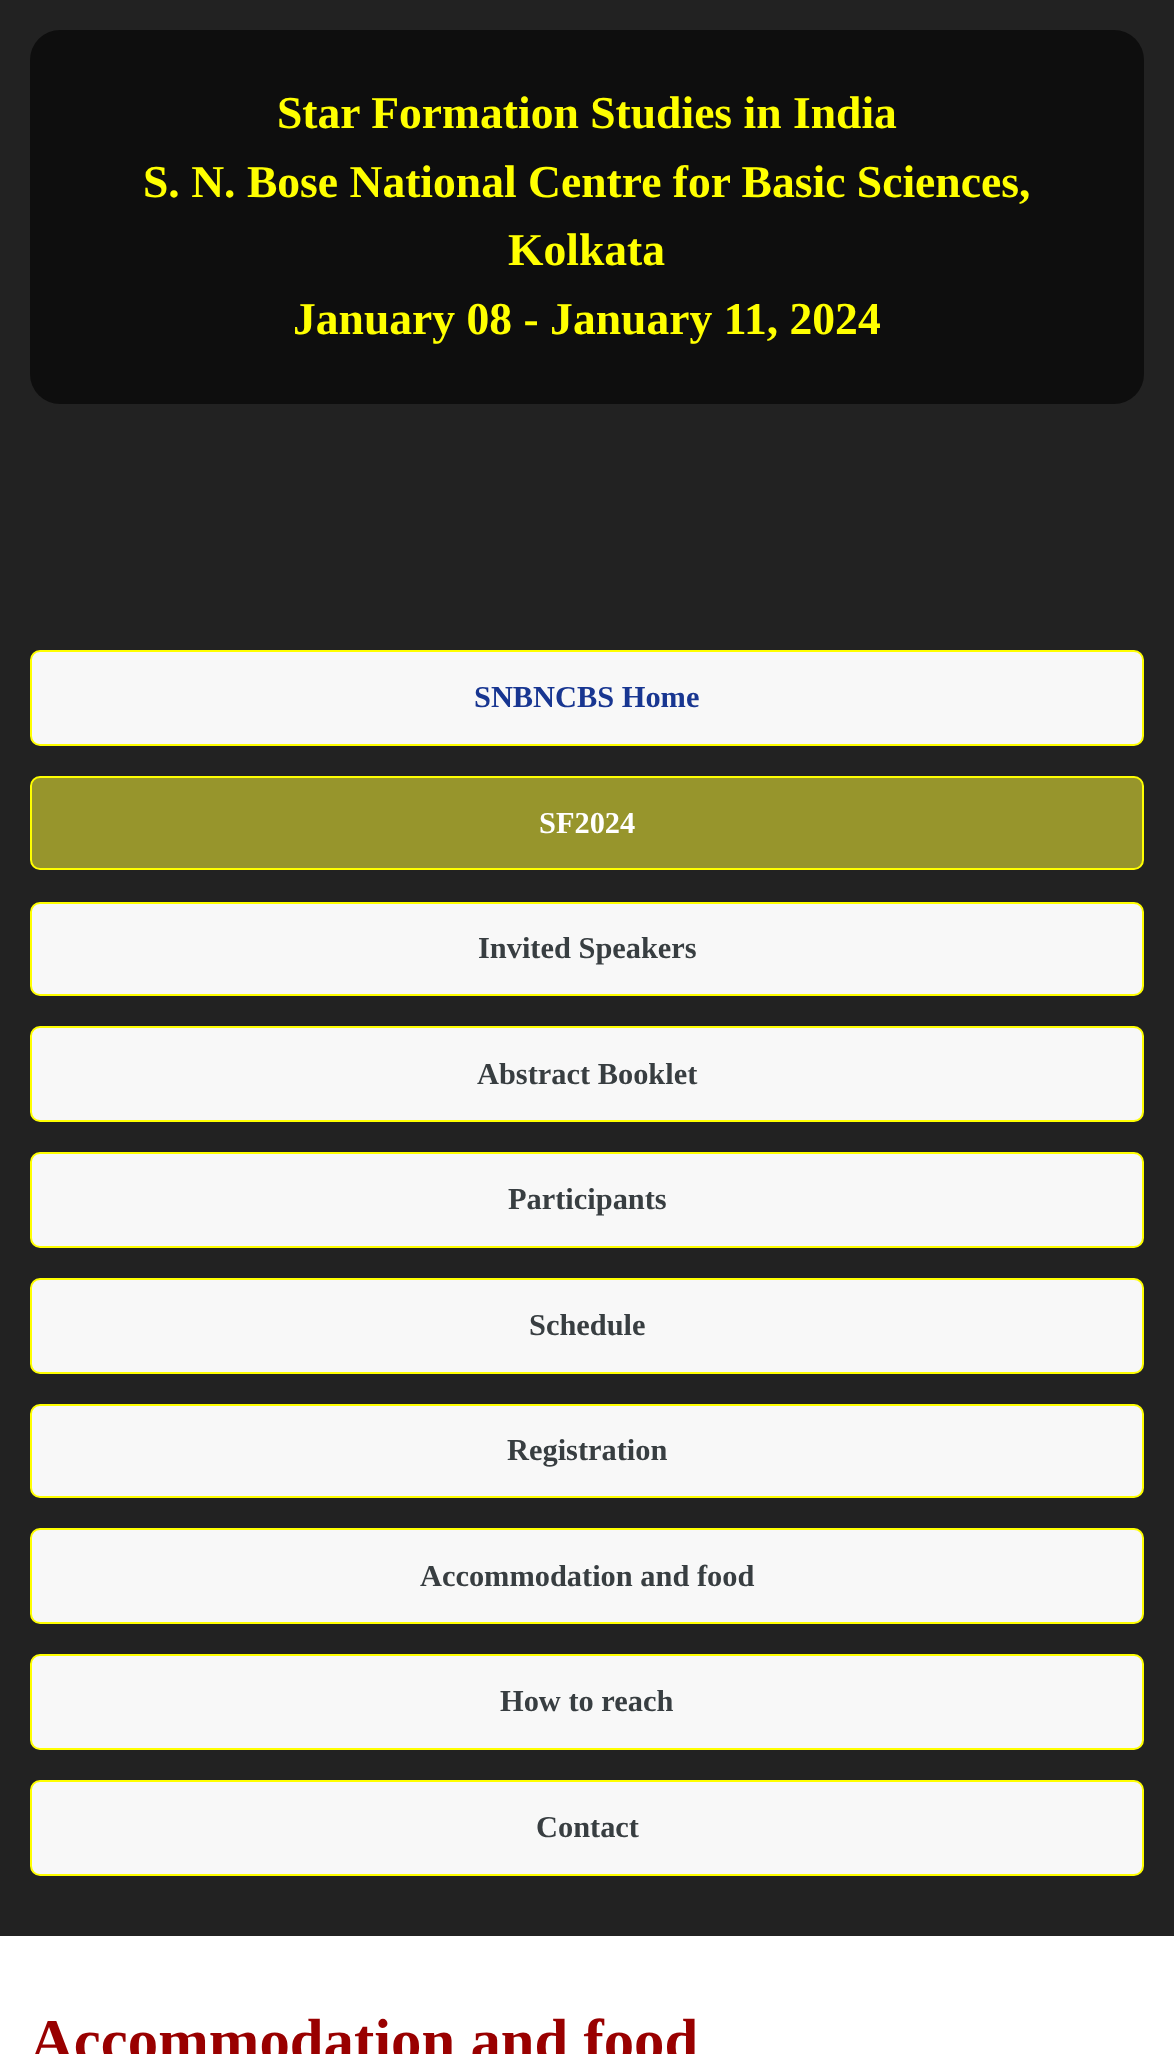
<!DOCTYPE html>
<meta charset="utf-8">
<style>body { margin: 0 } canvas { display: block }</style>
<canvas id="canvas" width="1174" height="2054"></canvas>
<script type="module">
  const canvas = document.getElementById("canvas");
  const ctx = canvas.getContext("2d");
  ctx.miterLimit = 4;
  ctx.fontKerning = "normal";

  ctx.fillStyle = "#ffffff";
  ctx.fillRect(0, 0, 1174, 2054);
  ctx.fillStyle = "#222222";
  ctx.fillRect(0, 0, 1174, 1936);
  ctx.fillStyle = "#0e0e0e";
  ctx.beginPath();
  ctx.roundRect(30, 30, 1114, 374, 30);
  ctx.fill();
  ctx.font = "bold 45.6px Liberation Serif";
  ctx.fillStyle = "#ffff00";
  ctx.fillText("Star Formation Studies in India", 277, 128);
  ctx.fillText("S. N. Bose National Centre for Basic Sciences,", 143, 197);
  ctx.fillText("Kolkata", 508, 265);
  ctx.fillText("January 08 - January 11, 2024", 293, 334);
  ctx.fillStyle = "#f8f8f8";
  ctx.beginPath();
  ctx.roundRect(31, 651, 1112, 94, 9);
  ctx.fill();
  ctx.strokeStyle = "#ffff00";
  ctx.lineWidth = 2;
  ctx.stroke();
  ctx.font = "bold 30.4px Liberation Serif";
  ctx.fillStyle = "#183691";
  ctx.fillText("SNBNCBS Home", 474, 707);
  ctx.fillStyle = "#97952c";
  ctx.beginPath();
  ctx.roundRect(31, 777, 1112, 92, 9);
  ctx.fill();
  ctx.stroke();
  ctx.fillStyle = "#ffffff";
  ctx.fillText("SF2024", 539, 833);
  ctx.fillStyle = "#f8f8f8";
  ctx.beginPath();
  ctx.roundRect(31, 903, 1112, 92, 9);
  ctx.fill();
  ctx.stroke();
  ctx.fillStyle = "#383e41";
  ctx.fillText("Invited Speakers", 478, 958);
  ctx.fillStyle = "#f8f8f8";
  ctx.beginPath();
  ctx.roundRect(31, 1027, 1112, 94, 9);
  ctx.fill();
  ctx.stroke();
  ctx.fillStyle = "#383e41";
  ctx.fillText("Abstract Booklet", 477, 1084);
  ctx.fillStyle = "#f8f8f8";
  ctx.beginPath();
  ctx.roundRect(31, 1153, 1112, 94, 9);
  ctx.fill();
  ctx.stroke();
  ctx.fillStyle = "#383e41";
  ctx.fillText("Participants", 508, 1209);
  ctx.fillStyle = "#f8f8f8";
  ctx.beginPath();
  ctx.roundRect(31, 1279, 1112, 94, 9);
  ctx.fill();
  ctx.stroke();
  ctx.fillStyle = "#383e41";
  ctx.fillText("Schedule", 529, 1335);
  ctx.fillStyle = "#f8f8f8";
  ctx.beginPath();
  ctx.roundRect(31, 1405, 1112, 92, 9);
  ctx.fill();
  ctx.stroke();
  ctx.fillStyle = "#383e41";
  ctx.fillText("Registration", 507, 1460);
  ctx.fillStyle = "#f8f8f8";
  ctx.beginPath();
  ctx.roundRect(31, 1529, 1112, 94, 9);
  ctx.fill();
  ctx.stroke();
  ctx.fillStyle = "#383e41";
  ctx.fillText("Accommodation and food", 420, 1586);
  ctx.fillStyle = "#f8f8f8";
  ctx.beginPath();
  ctx.roundRect(31, 1655, 1112, 94, 9);
  ctx.fill();
  ctx.stroke();
  ctx.fillStyle = "#383e41";
  ctx.fillText("How to reach", 500, 1711);
  ctx.fillStyle = "#f8f8f8";
  ctx.beginPath();
  ctx.roundRect(31, 1781, 1112, 94, 9);
  ctx.fill();
  ctx.stroke();
  ctx.fillStyle = "#383e41";
  ctx.fillText("Contact", 536, 1837);
  ctx.font = "bold 60.75px Liberation Serif";
  ctx.fillStyle = "#990000";
  ctx.fillText("Accommodation and food", 30, 2061);
</script>
